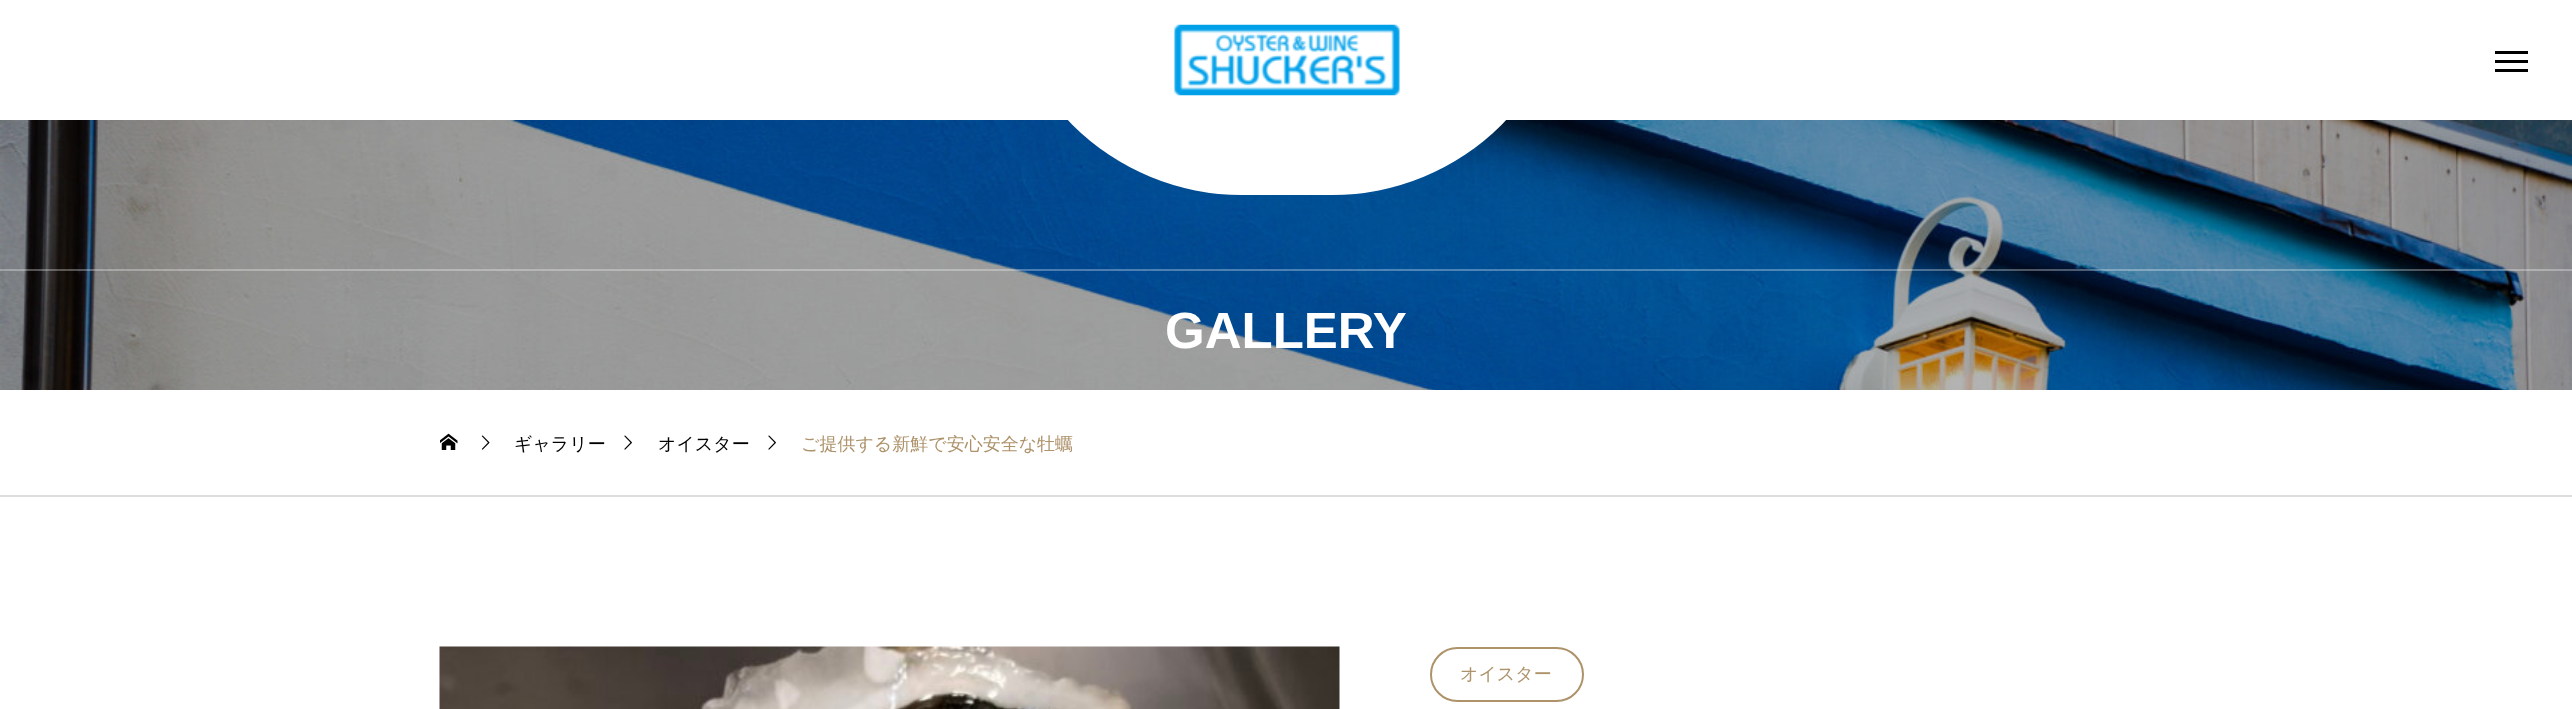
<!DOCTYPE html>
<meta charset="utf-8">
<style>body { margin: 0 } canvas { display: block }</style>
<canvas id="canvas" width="2572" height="709"></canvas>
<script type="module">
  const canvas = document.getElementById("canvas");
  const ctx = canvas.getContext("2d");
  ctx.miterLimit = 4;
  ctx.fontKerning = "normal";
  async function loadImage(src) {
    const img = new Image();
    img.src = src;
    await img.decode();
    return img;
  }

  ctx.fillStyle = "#ffffff";
  ctx.fillRect(0, 0, 2572, 709);
  ctx.drawImage(await loadImage("img2.png"), 0, 120, 2572, 270);
  ctx.beginPath();
  ctx.roundRect(1002, -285, 570, 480, 285);
  ctx.fill();
  ctx.drawImage(await loadImage("img1.png"), 1174, 24, 226, 72);
  ctx.fillStyle = "#000000";
  ctx.fillRect(2495, 51, 33, 3);
  ctx.fillRect(2495, 60, 33, 3);
  ctx.fillRect(2495, 69, 33, 3);
  ctx.fillStyle = "rgba(255, 255, 255, 0.3)";
  ctx.fillRect(0, 269, 2572, 2);
  ctx.font = "bold 51px Liberation Sans";
  ctx.fillStyle = "#ffffff";
  ctx.fillText("GALLERY", 1165, 348);
  ctx.fillStyle = "#dddddd";
  ctx.fillRect(0, 495, 2572, 2);
  ctx.drawImage(await loadImage("img3.png"), 440, 433, 18, 17);
  ctx.drawImage(await loadImage("img4.png"), 481, 435, 9, 15);
  ctx.font = "500 18px WenQuanYi Zen Hei";
  ctx.fillStyle = "#000000";
  ctx.fillText("ギャラリー", 514, 450);
  ctx.drawImage(await loadImage("img5.png"), 624, 435, 8, 15);
  ctx.fillText("オイスター", 658, 450);
  ctx.drawImage(await loadImage("img5.png"), 768, 435, 8, 15);
  ctx.fillStyle = "#ad926a";
  ctx.fillText("ご提供する新鮮で安心安全な牡蠣", 801, 450);
  ctx.drawImage(await loadImage("img6.png"), 439, 646, 901, 63);
  ctx.beginPath();
  ctx.roundRect(1431, 648, 152, 53, 26.5);
  ctx.strokeStyle = "#ad926a";
  ctx.lineWidth = 2;
  ctx.stroke();
  ctx.fillText("オイスター", 1460, 680);
</script>
